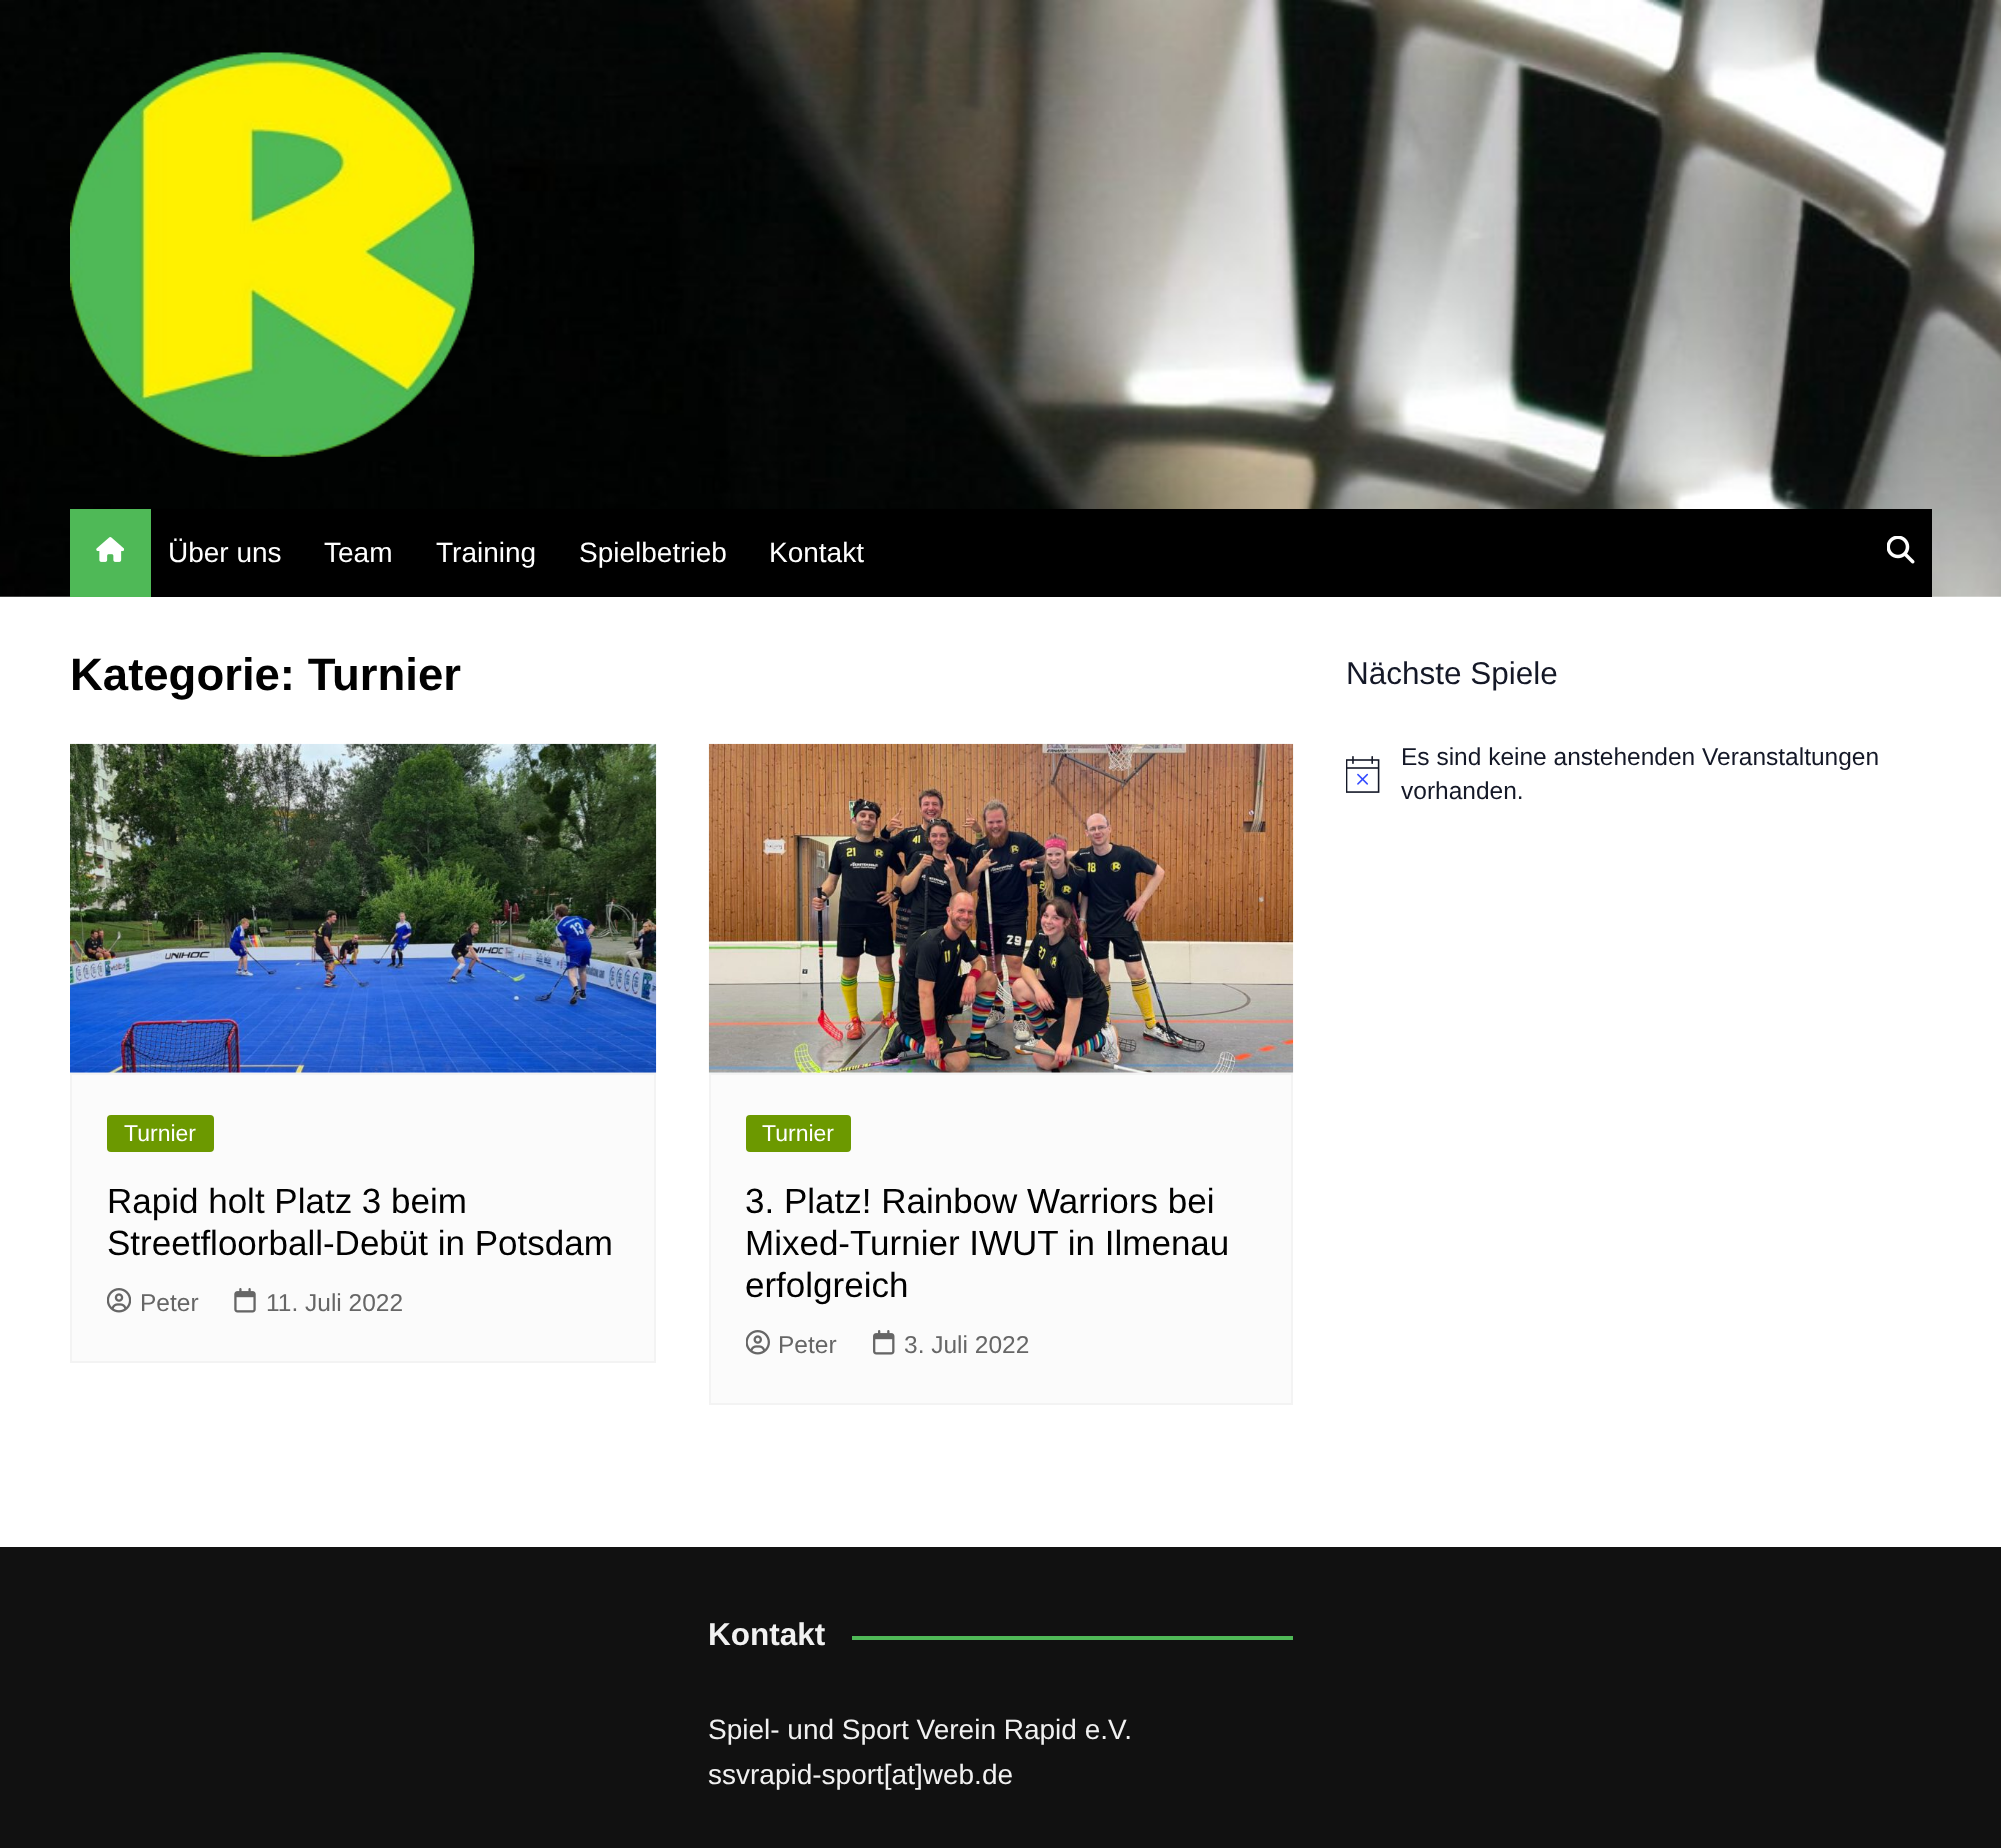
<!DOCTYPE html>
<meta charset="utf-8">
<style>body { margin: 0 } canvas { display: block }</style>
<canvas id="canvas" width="2001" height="1848"></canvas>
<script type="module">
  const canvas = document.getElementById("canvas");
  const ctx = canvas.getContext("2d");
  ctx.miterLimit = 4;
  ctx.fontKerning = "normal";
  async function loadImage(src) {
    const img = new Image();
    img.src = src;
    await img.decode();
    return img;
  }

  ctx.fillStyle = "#ffffff";
  ctx.fillRect(0, 0, 2001, 1848);
  ctx.drawImage(await loadImage("img1.png"), 0, 0, 2001, 597);
  ctx.drawImage(await loadImage("img2.png"), 70, 52, 405, 405);
  ctx.fillStyle = "#000000";
  ctx.fillRect(151, 509, 1781, 88);
  ctx.fillStyle = "#4fb957";
  ctx.fillRect(70, 509, 81, 88);
  ctx.drawImage(await loadImage("img3.png"), 96, 537, 28, 25);
  ctx.font = "28px Liberation Sans";
  ctx.fillStyle = "#ffffff";
  ctx.fillText("Über uns", 168, 562);
  ctx.fillText("Team", 324, 562);
  ctx.fillText("Training", 436, 562);
  ctx.fillText("Spielbetrieb", 579, 562);
  ctx.fillText("Kontakt", 769, 562);
  ctx.drawImage(await loadImage("img4.png"), 1887, 536, 28, 28);
  ctx.font = "bold 45.5px Liberation Sans";
  ctx.fillStyle = "#010101";
  ctx.fillText("Kategorie: Turnier", 70, 690);
  ctx.drawImage(await loadImage("img5.png"), 70, 743, 587, 330);
  ctx.fillStyle = "#fbfbfb";
  ctx.beginPath();
  ctx.rect(71, 1074, 584, 288);
  ctx.fill();
  ctx.strokeStyle = "#f3f3f3";
  ctx.lineWidth = 2;
  ctx.stroke();
  ctx.fillStyle = "#6c9900";
  ctx.beginPath();
  ctx.roundRect(107, 1115, 107, 37, 4);
  ctx.fill();
  ctx.font = "23px Liberation Sans";
  ctx.fillStyle = "#ffffff";
  ctx.fillText("Turnier", 124, 1141);
  ctx.font = "35px Liberation Sans";
  ctx.fillStyle = "#010101";
  ctx.fillText("Rapid holt Platz 3 beim", 107, 1213);
  ctx.fillText("Streetfloorball-Debüt in Potsdam", 107, 1255);
  ctx.drawImage(await loadImage("img6.png"), 107, 1288, 24, 25);
  ctx.font = "24.5px Liberation Sans";
  ctx.fillStyle = "#666666";
  ctx.fillText("Peter", 140, 1311);
  ctx.drawImage(await loadImage("img7.png"), 234, 1288, 22, 25);
  ctx.fillText("11. Juli 2022", 266, 1311);
  ctx.drawImage(await loadImage("img8.png"), 708, 743, 586, 330);
  ctx.fillStyle = "#fbfbfb";
  ctx.beginPath();
  ctx.rect(710, 1074, 582, 330);
  ctx.fill();
  ctx.stroke();
  ctx.fillStyle = "#6c9900";
  ctx.beginPath();
  ctx.roundRect(746, 1115, 105, 37, 4);
  ctx.fill();
  ctx.font = "23px Liberation Sans";
  ctx.fillStyle = "#ffffff";
  ctx.fillText("Turnier", 762, 1141);
  ctx.font = "35px Liberation Sans";
  ctx.fillStyle = "#010101";
  ctx.fillText("3. Platz! Rainbow Warriors bei", 745, 1213);
  ctx.fillText("Mixed-Turnier IWUT in Ilmenau", 745, 1255);
  ctx.fillText("erfolgreich", 745, 1297);
  ctx.drawImage(await loadImage("img9.png"), 746, 1330, 24, 25);
  ctx.font = "24.5px Liberation Sans";
  ctx.fillStyle = "#666666";
  ctx.fillText("Peter", 778, 1353);
  ctx.drawImage(await loadImage("img10.png"), 873, 1330, 22, 25);
  ctx.fillText("3. Juli 2022", 904, 1353);
  ctx.font = "31.5px Liberation Sans";
  ctx.fillStyle = "#141827";
  ctx.fillText("Nächste Spiele", 1346, 684);
  ctx.drawImage(await loadImage("img11.png"), 1346, 756, 34, 37);
  ctx.font = "24.5px Liberation Sans";
  ctx.fillText("Es sind keine anstehenden Veranstaltungen", 1401, 765);
  ctx.fillText("vorhanden.", 1401, 799);
  ctx.fillStyle = "#111111";
  ctx.fillRect(0, 1547, 2001, 301);
  ctx.font = "bold 31.5px Liberation Sans";
  ctx.fillStyle = "#f1f1f1";
  ctx.fillText("Kontakt", 708, 1645);
  ctx.fillStyle = "#4fb957";
  ctx.fillRect(852, 1636, 441, 4);
  ctx.font = "28px Liberation Sans";
  ctx.fillStyle = "#f1f1f1";
  ctx.fillText("Spiel- und Sport Verein Rapid e.V.", 708, 1739);
  ctx.fillText("ssvrapid-sport[at]web.de", 708, 1784);
</script>
